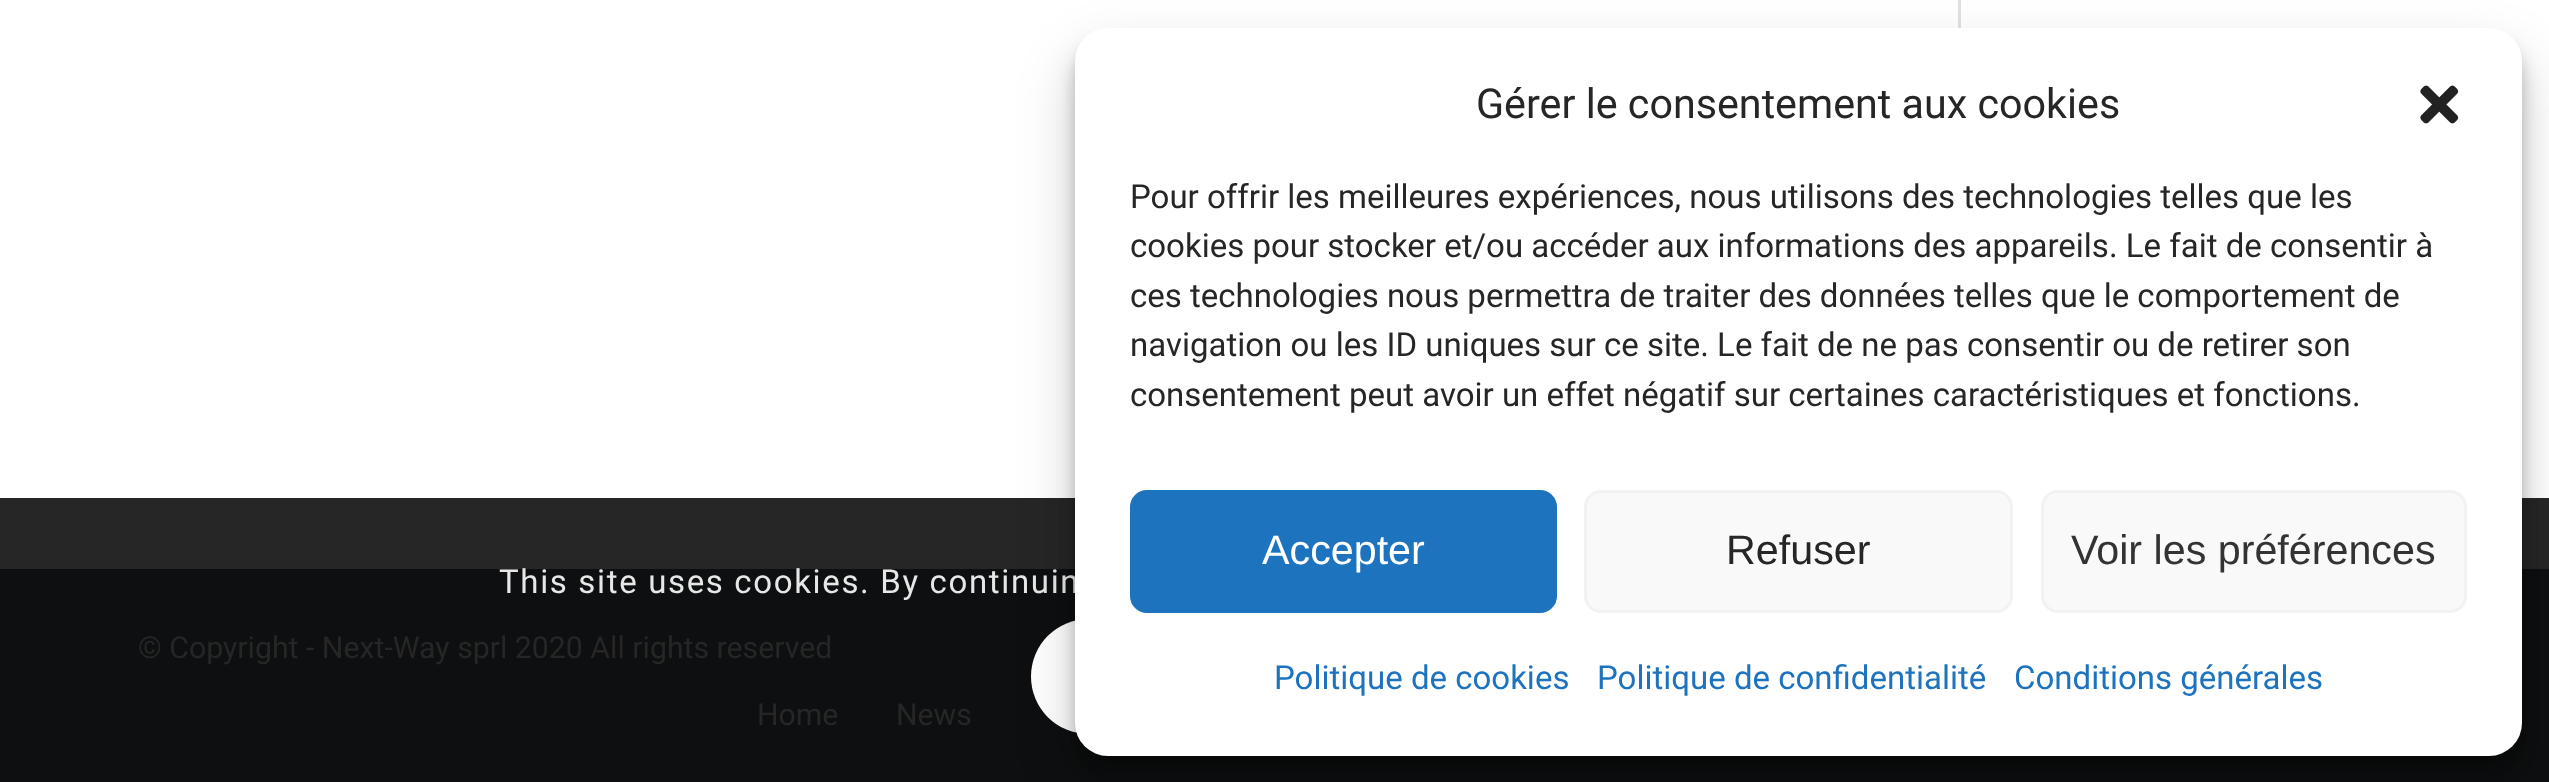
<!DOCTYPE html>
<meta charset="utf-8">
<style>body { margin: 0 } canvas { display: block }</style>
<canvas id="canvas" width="2549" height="782"></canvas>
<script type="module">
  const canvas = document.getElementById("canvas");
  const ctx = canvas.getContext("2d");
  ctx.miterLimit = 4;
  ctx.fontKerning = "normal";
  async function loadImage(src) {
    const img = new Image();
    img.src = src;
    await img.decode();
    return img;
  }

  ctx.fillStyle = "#ffffff";
  ctx.fillRect(0, 0, 2549, 782);
  ctx.fillStyle = "#262626";
  ctx.fillRect(0, 498, 2549, 71);
  ctx.fillStyle = "#0e0f10";
  ctx.fillRect(0, 569, 2549, 213);
  ctx.letterSpacing = "1.65px";
  ctx.font = "33px Roboto";
  ctx.fillStyle = "#e7e7e7";
  ctx.fillText("This site uses cookies. By continuin", 499, 593);
  ctx.fillStyle = "#ffffff";
  ctx.beginPath();
  ctx.roundRect(1031, 619, 220, 115, 57.5);
  ctx.fill();
  ctx.fillStyle = "#e1e1e1";
  ctx.fillRect(1958, 0, 3, 28);
  ctx.fillStyle = "rgba(0, 0, 0, 0.23)";
  ctx.filter = "blur(8px)";
  ctx.beginPath();
  ctx.roundRect(1075, 44, 1447, 729, 33);
  ctx.fill();
  ctx.filter = "none";
  ctx.fillStyle = "rgba(0, 0, 0, 0.19)";
  ctx.filter = "blur(27.5px)";
  ctx.beginPath();
  ctx.roundRect(1075, 55, 1447, 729, 33);
  ctx.fill();
  ctx.filter = "none";
  ctx.fillStyle = "#ffffff";
  ctx.beginPath();
  ctx.roundRect(1075, 28, 1447, 728, 33);
  ctx.fill();
  ctx.letterSpacing = "0px";
  ctx.font = "41.25px Roboto";
  ctx.fillStyle = "#262626";
  ctx.fillText("Gérer le consentement aux cookies", 1476, 118);
  ctx.drawImage(await loadImage("img1.png"), 2420, 85, 39, 39);
  ctx.font = "33px Roboto";
  ctx.fillText("Pour offrir les meilleures expériences, nous utilisons des technologies telles que les", 1130, 208);
  ctx.fillText("cookies pour stocker et/ou accéder aux informations des appareils. Le fait de consentir à", 1130, 257);
  ctx.fillText("ces technologies nous permettra de traiter des données telles que le comportement de", 1130, 307);
  ctx.fillText("navigation ou les ID uniques sur ce site. Le fait de ne pas consentir ou de retirer son", 1130, 356);
  ctx.fillText("consentement peut avoir un effet négatif sur certaines caractéristiques et fonctions.", 1130, 406);
  ctx.fillStyle = "#1e73be";
  ctx.beginPath();
  ctx.roundRect(1131.5, 491.5, 424, 120, 15.5);
  ctx.fill();
  ctx.strokeStyle = "#1e73be";
  ctx.lineWidth = 3;
  ctx.stroke();
  ctx.font = "41.25px Liberation Sans";
  ctx.fillStyle = "#ffffff";
  ctx.fillText("Accepter", 1262, 564);
  ctx.fillStyle = "#f9f9f9";
  ctx.beginPath();
  ctx.roundRect(1585.5, 491.5, 426, 120, 15.5);
  ctx.fill();
  ctx.strokeStyle = "#f2f2f2";
  ctx.stroke();
  ctx.fillStyle = "#262626";
  ctx.fillText("Refuser", 1726, 564);
  ctx.fillStyle = "#f9f9f9";
  ctx.beginPath();
  ctx.roundRect(2042.5, 491.5, 423, 120, 15.5);
  ctx.fill();
  ctx.stroke();
  ctx.fillStyle = "#333333";
  ctx.fillText("Voir les préférences", 2071, 564);
  ctx.font = "33px Roboto";
  ctx.fillStyle = "#1e73be";
  ctx.fillText("Politique de cookies", 1274, 689);
  ctx.fillText("Politique de confidentialité", 1597, 689);
  ctx.fillText("Conditions générales", 2014, 689);
  ctx.font = "30.25px Roboto";
  ctx.fillStyle = "#262626";
  ctx.fillText("© Copyright - Next-Way sprl 2020 All rights reserved", 138, 658);
  ctx.fillText("Home", 757, 725);
  ctx.fillText("News", 896, 725);
</script>
